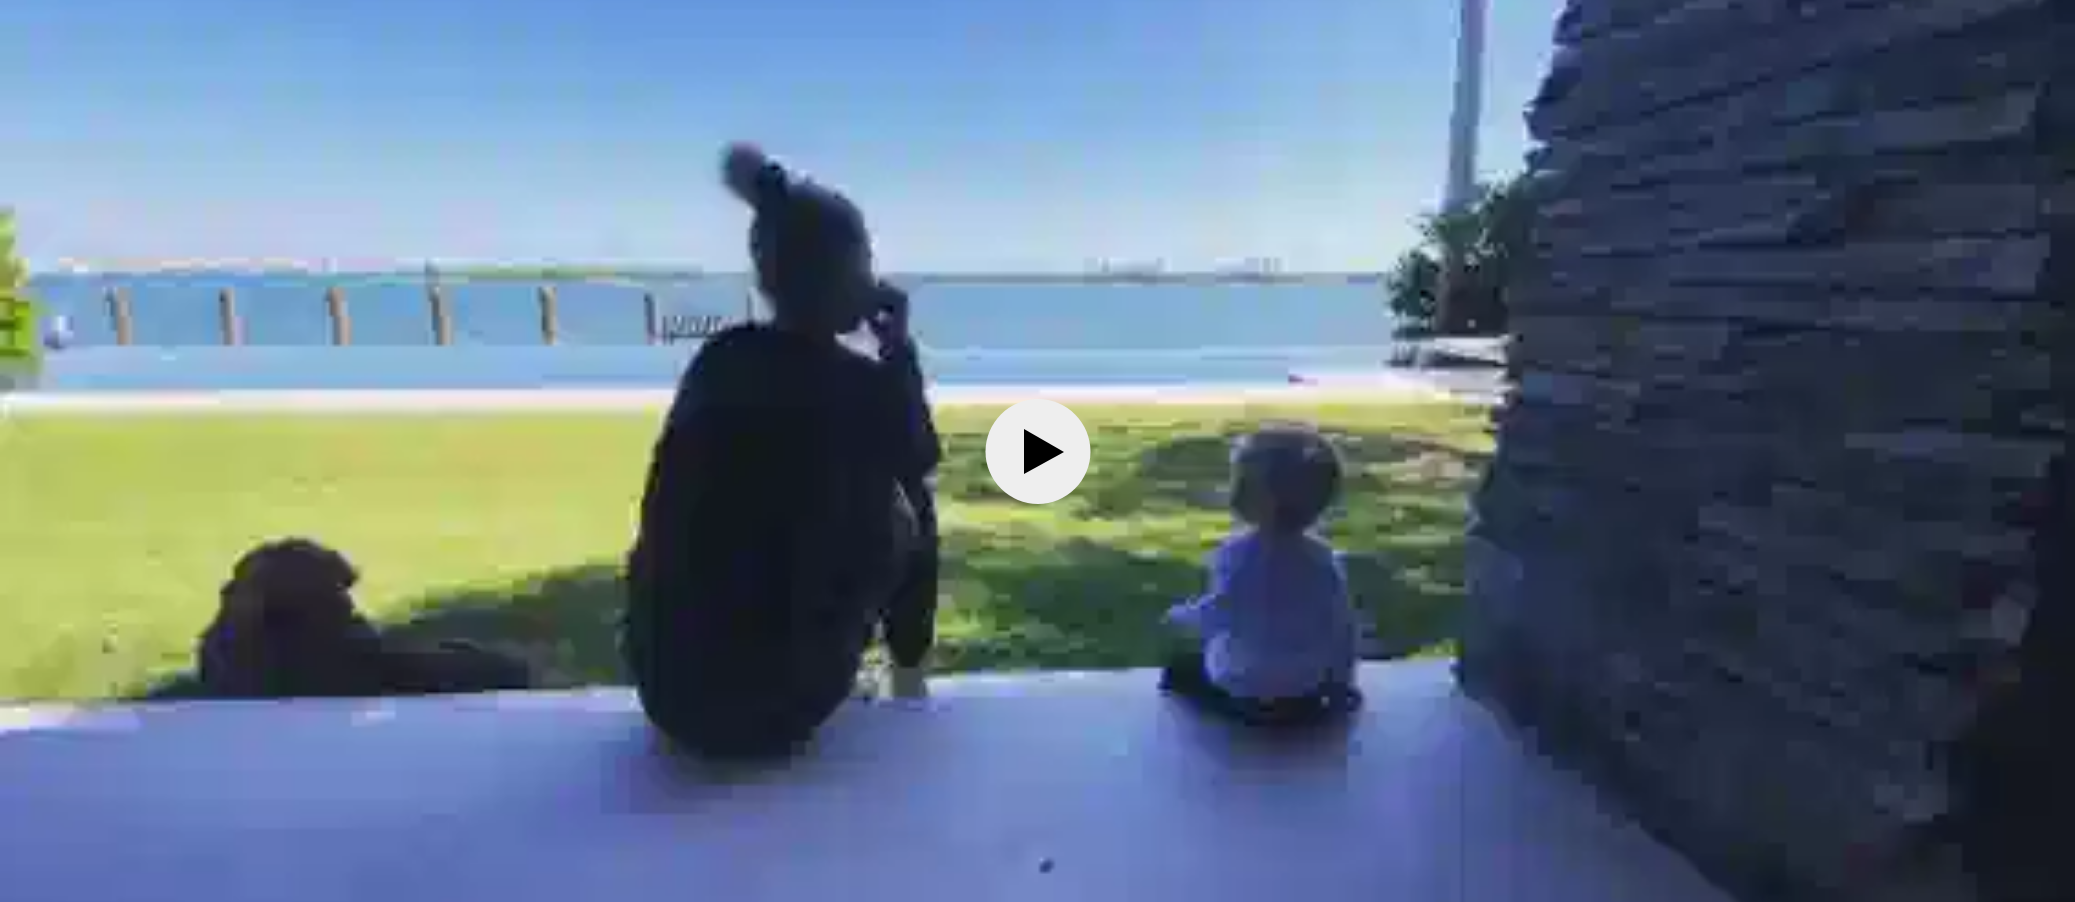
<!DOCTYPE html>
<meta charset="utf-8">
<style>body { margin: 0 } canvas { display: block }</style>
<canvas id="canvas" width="2075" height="902"></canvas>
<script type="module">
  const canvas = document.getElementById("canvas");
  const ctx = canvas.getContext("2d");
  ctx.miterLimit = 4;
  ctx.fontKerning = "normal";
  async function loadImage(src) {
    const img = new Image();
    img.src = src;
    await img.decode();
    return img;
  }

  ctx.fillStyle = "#ffffff";
  ctx.fillRect(0, 0, 2075, 902);
  ctx.drawImage(await loadImage("img1.png"), 0, 0, 2075, 902);
  ctx.fillStyle = "#eeeeee";
  ctx.beginPath();
  ctx.arc(1038, 451.5, 52.5, 0, Math.PI * 2);
  ctx.fill();
  ctx.fillStyle = "#000000";
  ctx.beginPath();
  ctx.moveTo(1064, 452);
  ctx.lineTo(1024, 429);
  ctx.lineTo(1024, 474);
  ctx.closePath();
  ctx.fill();
</script>
